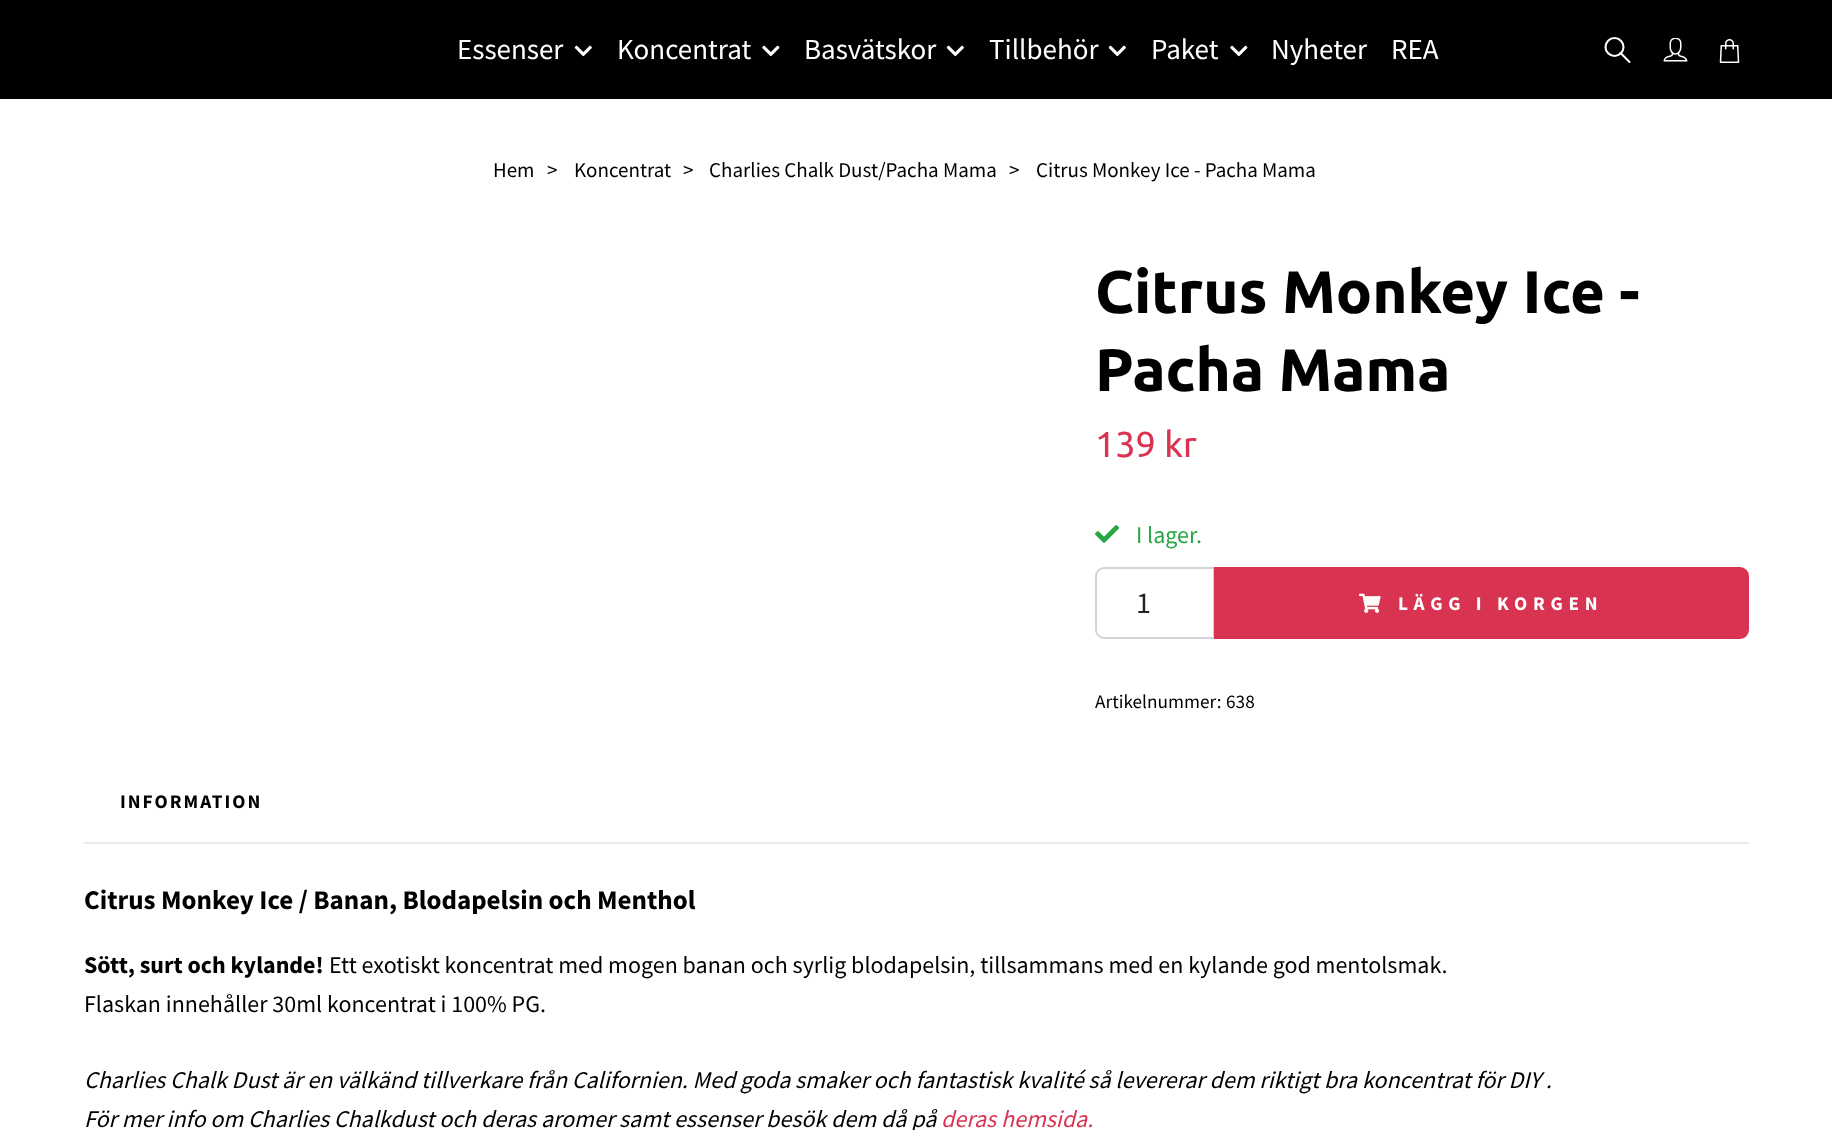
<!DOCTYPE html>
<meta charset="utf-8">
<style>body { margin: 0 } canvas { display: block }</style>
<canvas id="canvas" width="1832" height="1130"></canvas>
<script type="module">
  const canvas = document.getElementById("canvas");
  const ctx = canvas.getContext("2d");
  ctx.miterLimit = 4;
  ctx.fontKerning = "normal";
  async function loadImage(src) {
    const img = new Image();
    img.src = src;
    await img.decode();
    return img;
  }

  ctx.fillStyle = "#ffffff";
  ctx.fillRect(0, 0, 1832, 1130);
  ctx.fillStyle = "#000000";
  ctx.fillRect(0, 0, 1832, 99);
  ctx.font = "29px Source Sans Pro";
  ctx.fillStyle = "#ffffff";
  ctx.fillText("Essenser", 457, 59);
  ctx.drawImage(await loadImage("img1.png"), 574, 45, 18, 12);
  ctx.fillText("Koncentrat", 617, 59);
  ctx.drawImage(await loadImage("img2.png"), 762, 45, 18, 12);
  ctx.fillText("Basvätskor", 804, 59);
  ctx.drawImage(await loadImage("img1.png"), 946, 45, 18, 12);
  ctx.fillText("Tillbehör", 989, 59);
  ctx.drawImage(await loadImage("img1.png"), 1108, 45, 18, 12);
  ctx.fillText("Paket", 1151, 59);
  ctx.drawImage(await loadImage("img2.png"), 1230, 45, 18, 12);
  ctx.fillText("Nyheter", 1271, 59);
  ctx.fillText("REA", 1391, 59);
  ctx.beginPath();
  ctx.moveTo(1620.5, 53);
  ctx.lineTo(1629.5, 62);
  ctx.strokeStyle = "#ffffff";
  ctx.lineWidth = 2.1;
  ctx.lineCap = "round";
  ctx.lineJoin = "round";
  ctx.stroke();
  ctx.beginPath();
  ctx.arc(1614.5, 47, 9, 0, Math.PI * 2);
  ctx.stroke();
  ctx.drawImage(await loadImage("img3.png"), 1663, 38, 25, 24);
  ctx.drawImage(await loadImage("img4.png"), 1719, 39, 21, 24);
  ctx.font = "21px Source Sans Pro";
  ctx.fillStyle = "#000000";
  ctx.fillText("Hem", 493, 177);
  ctx.fillText(">", 547, 177);
  ctx.fillText("Koncentrat", 574, 177);
  ctx.fillText(">", 683, 177);
  ctx.fillText("Charlies Chalk Dust/Pacha Mama", 709, 177);
  ctx.fillText(">", 1009, 177);
  ctx.fillText("Citrus Monkey Ice - Pacha Mama", 1036, 177);
  ctx.font = "bold 60px Ubuntu";
  ctx.fillText("Citrus Monkey Ice -", 1095, 313);
  ctx.fillText("Pacha Mama", 1095, 391);
  ctx.font = "36px Ubuntu";
  ctx.fillStyle = "#d83451";
  ctx.fillText("139 kr", 1095, 457);
  ctx.drawImage(await loadImage("img5.png"), 1095, 525, 24, 18);
  ctx.font = "24px Source Sans Pro";
  ctx.fillStyle = "#28a745";
  ctx.fillText("I lager.", 1136, 543);
  ctx.beginPath();
  ctx.roundRect(1096, 568, 118, 70, [8, 0, 0, 8]);
  ctx.strokeStyle = "#ced4da";
  ctx.lineWidth = 2;
  ctx.lineJoin = "miter";
  ctx.stroke();
  ctx.font = "30px Source Sans Pro";
  ctx.fillStyle = "#222222";
  ctx.fillText("1", 1136, 613);
  ctx.fillStyle = "#d83451";
  ctx.beginPath();
  ctx.roundRect(1214, 567, 535, 72, [0, 9, 9, 0]);
  ctx.fill();
  ctx.drawImage(await loadImage("img6.png"), 1359, 593, 22, 20);
  ctx.letterSpacing = "5.75px";
  ctx.font = "bold 19.25px Source Sans Pro";
  ctx.fillStyle = "#ffffff";
  ctx.fillText("LÄGG I KORGEN", 1398, 610);
  ctx.letterSpacing = "0px";
  ctx.font = "19.25px Source Sans Pro";
  ctx.fillStyle = "#000000";
  ctx.fillText("Artikelnummer:", 1095, 708);
  ctx.fillText("638", 1226, 708);
  ctx.fillStyle = "#e9e9e9";
  ctx.fillRect(84, 842, 1665, 2);
  ctx.letterSpacing = "2px";
  ctx.font = "bold 19.25px Source Sans Pro";
  ctx.fillStyle = "#000000";
  ctx.fillText("INFORMATION", 120, 808);
  ctx.letterSpacing = "0px";
  ctx.font = "bold 27px Source Sans Pro";
  ctx.fillText("Citrus Monkey Ice / Banan, Blodapelsin och Menthol", 84, 909);
  ctx.font = "bold 24px Source Sans Pro";
  ctx.fillText("Sött, surt och kylande!", 84, 973);
  ctx.font = "24px Source Sans Pro";
  ctx.fillText("Ett exotiskt koncentrat med mogen banan och syrlig blodapelsin, tillsammans med en kylande god mentolsmak.", 329, 973);
  ctx.fillText("Flaskan innehåller 30ml koncentrat i 100% PG.", 84, 1012);
  ctx.font = "italic 24px Source Sans Pro";
  ctx.fillText("Charlies Chalk Dust är en välkänd tillverkare från Californien. Med goda smaker och fantastisk kvalité så levererar dem riktigt bra koncentrat för DIY .", 84, 1088);
  ctx.fillText("För mer info om Charlies Chalkdust och deras aromer samt essenser besök dem då på", 84, 1127);
  ctx.fillStyle = "#d83451";
  ctx.fillText("deras hemsida.", 941, 1127);
</script>
